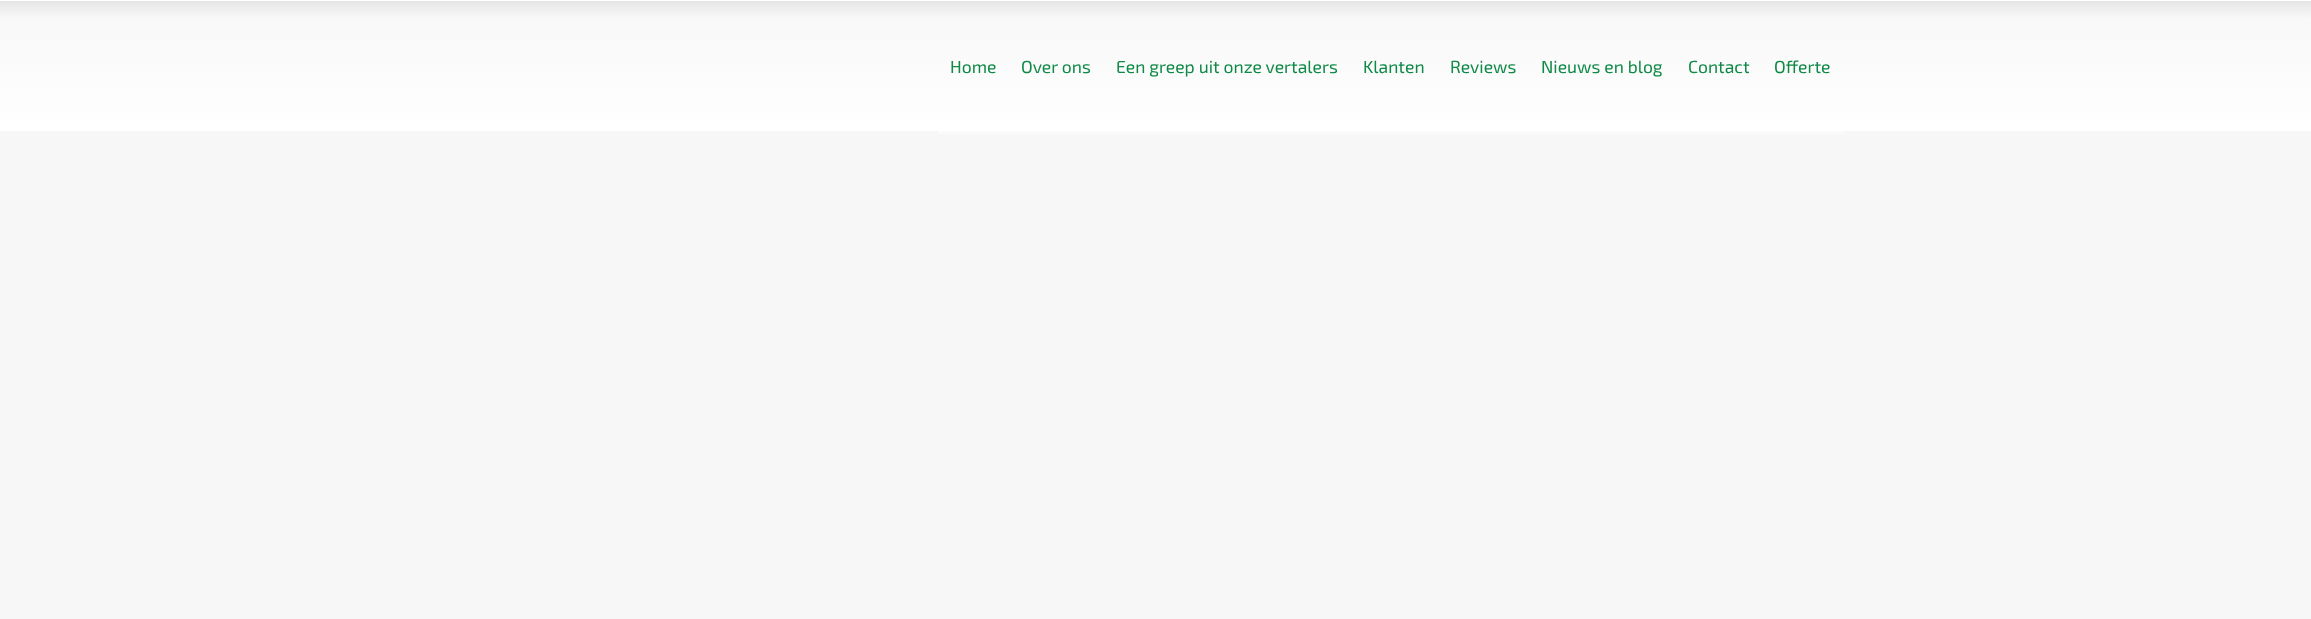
<!DOCTYPE html>
<meta charset="utf-8">
<style>body { margin: 0 } canvas { display: block }</style>
<canvas id="canvas" width="2311" height="619"></canvas>
<script type="module">
  const canvas = document.getElementById("canvas");
  const ctx = canvas.getContext("2d");
  ctx.miterLimit = 4;
  ctx.fontKerning = "normal";
  let gradient;

  ctx.fillStyle = "#f7f7f7";
  ctx.fillRect(0, 0, 2311, 619);
  gradient = ctx.createLinearGradient(1156, 0, 1156, 131);
  gradient.addColorStop(0.01, "#ffffff");
  gradient.addColorStop(0.01, "#e6e6e6");
  gradient.addColorStop(0.14, "#f8f8f8");
  gradient.addColorStop(1, "#ffffff");
  ctx.fillStyle = gradient;
  ctx.fillRect(0, 0, 2311, 131);
  ctx.font = "17.5px 'Exo 2'";
  ctx.fillStyle = "#0e8946";
  ctx.fillText("Home", 950, 73);
  ctx.fillStyle = "#fbfbfb";
  ctx.fillRect(938, 131, 906, 3);
  ctx.fillStyle = "#0e8946";
  ctx.fillText("Over ons", 1021, 73);
  ctx.fillText("Een greep uit onze vertalers", 1116, 73);
  ctx.fillText("Klanten", 1363, 73);
  ctx.fillText("Reviews", 1450, 73);
  ctx.fillText("Nieuws en blog", 1541, 73);
  ctx.fillText("Contact", 1688, 73);
  ctx.fillText("Offerte", 1774, 73);
</script>
